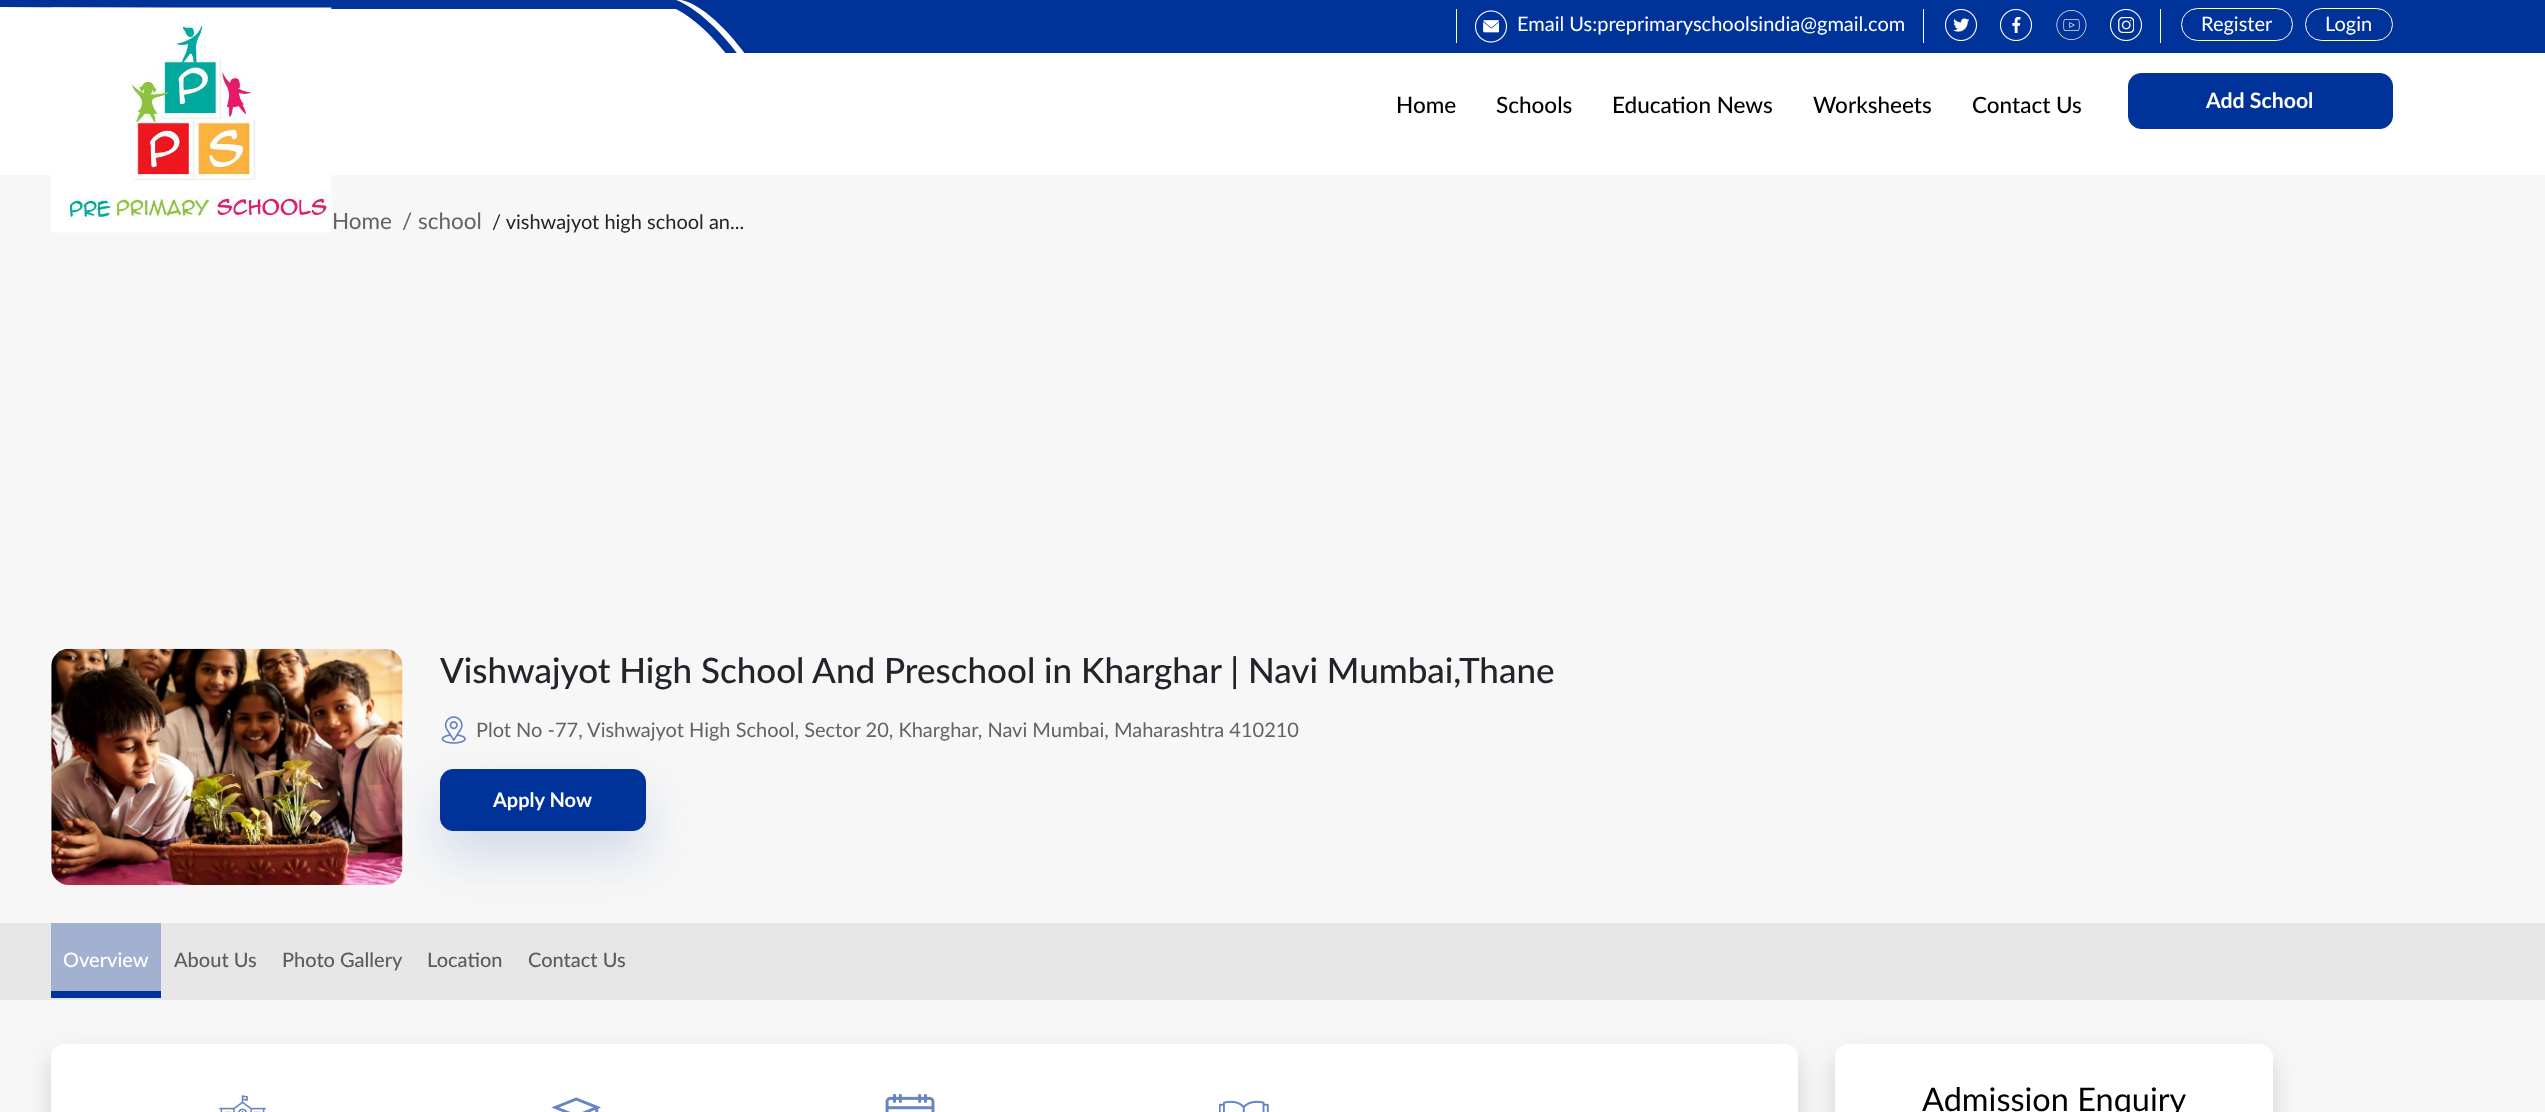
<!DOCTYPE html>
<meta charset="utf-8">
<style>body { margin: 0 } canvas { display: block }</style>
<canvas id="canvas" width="2545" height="1112"></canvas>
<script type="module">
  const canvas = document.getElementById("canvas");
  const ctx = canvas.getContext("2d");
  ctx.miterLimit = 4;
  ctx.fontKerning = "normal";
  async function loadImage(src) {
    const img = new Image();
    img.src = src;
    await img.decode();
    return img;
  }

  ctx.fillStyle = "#ffffff";
  ctx.fillRect(0, 0, 2545, 1112);
  ctx.save();
  ctx.beginPath();
  ctx.rect(0, 0, 2545, 53);
  ctx.clip();
  ctx.fillStyle = "#003399";
  ctx.beginPath();
  ctx.moveTo(676, 0);
  ctx.lineTo(0, 0);
  ctx.lineTo(0, 7);
  ctx.lineTo(337, 9);
  ctx.lineTo(676, 9);
  ctx.bezierCurveTo(702, 22, 726, 52, 737, 69);
  ctx.lineTo(746, 66);
  ctx.bezierCurveTo(716, 21, 687, 4, 676, 0);
  ctx.closePath();
  ctx.fill();
  ctx.beginPath();
  ctx.moveTo(2545, 0);
  ctx.lineTo(681, 0);
  ctx.bezierCurveTo(708, 5, 743, 48, 755, 69);
  ctx.lineTo(2545, 69);
  ctx.closePath();
  ctx.fill();
  ctx.restore();
  ctx.fillRect(1456, 9, 1, 34);
  ctx.drawImage(await loadImage("img1.png"), 1475, 10, 33, 33);
  ctx.font = "20px Lato";
  ctx.fillText("Email Us:preprimaryschoolsindia@gmail.com", 1517, 31);
  ctx.fillRect(1923, 9, 1, 34);
  ctx.drawImage(await loadImage("img2.png"), 1945, 9, 33, 32);
  ctx.drawImage(await loadImage("img3.png"), 2000, 9, 33, 32);
  ctx.drawImage(await loadImage("img4.png"), 2056, 10, 31, 30);
  ctx.drawImage(await loadImage("img5.png"), 2110, 9, 33, 32);
  ctx.fillRect(2160, 9, 1, 34);
  ctx.beginPath();
  ctx.roundRect(2181.5, 8.5, 111, 32, 16);
  ctx.strokeStyle = "#ffffff";
  ctx.stroke();
  ctx.fillText("Register", 2201, 31);
  ctx.beginPath();
  ctx.roundRect(2305.5, 8.5, 87, 32, 16);
  ctx.stroke();
  ctx.fillText("Login", 2325, 31);
  ctx.fillStyle = "#f7f7f7";
  ctx.fillRect(0, 175, 2545, 937);
  ctx.drawImage(await loadImage("img6.png"), 51, 7, 281, 226);
  ctx.font = "500 22.5px Lato";
  ctx.fillStyle = "#000000";
  ctx.fillText("Home", 1396, 113);
  ctx.fillText("Schools", 1496, 113);
  ctx.fillText("Education News", 1612, 113);
  ctx.fillText("Worksheets", 1813, 113);
  ctx.fillText("Contact Us", 1972, 113);
  ctx.fillStyle = "#003399";
  ctx.beginPath();
  ctx.roundRect(2128.5, 73.5, 264, 55, 12.5);
  ctx.fill();
  ctx.strokeStyle = "#003399";
  ctx.stroke();
  ctx.font = "bold 21.25px Lato";
  ctx.fillStyle = "#ffffff";
  ctx.fillText("Add School", 2206, 108);
  ctx.font = "22.5px Lato";
  ctx.fillStyle = "#636363";
  ctx.fillText("Home", 332, 229);
  ctx.fillText("/ school", 402, 229);
  ctx.font = "20px Lato";
  ctx.fillStyle = "#212529";
  ctx.fillText("/ vishwajyot high school an...", 492, 229);
  ctx.drawImage(await loadImage("img7.png"), 51, 648, 352, 237);
  ctx.font = "500 35px Lato";
  ctx.fillText("Vishwajyot High School And Preschool in Kharghar | Navi Mumbai,Thane", 440, 683);
  ctx.drawImage(await loadImage("img8.png"), 441, 716, 25, 28);
  ctx.font = "20px Lato";
  ctx.fillStyle = "#636363";
  ctx.fillText("Plot No -77, Vishwajyot High School, Sector 20, Kharghar, Navi Mumbai, Maharashtra 410210", 476, 737);
  ctx.fillStyle = "#e7e7e7";
  ctx.fillRect(0, 923, 2545, 77);
  ctx.fillStyle = "rgba(0, 51, 153, 0.15)";
  ctx.filter = "blur(25px)";
  ctx.beginPath();
  ctx.roundRect(440, 794, 206, 62, 13);
  ctx.fill();
  ctx.filter = "none";
  ctx.fillStyle = "#003399";
  ctx.beginPath();
  ctx.roundRect(440.5, 769.5, 205, 61, 12.5);
  ctx.fill();
  ctx.stroke();
  ctx.font = "bold 20px Lato";
  ctx.fillStyle = "#ffffff";
  ctx.fillText("Apply Now", 493, 807);
  ctx.fillStyle = "#a2b1d0";
  ctx.fillRect(51, 923, 110, 68);
  ctx.fillStyle = "#003399";
  ctx.fillRect(51, 991, 110, 7);
  ctx.font = "500 20px Lato";
  ctx.fillStyle = "#ffffff";
  ctx.fillText("Overview", 63, 967);
  ctx.fillStyle = "#5c5c5c";
  ctx.fillText("About Us", 174, 967);
  ctx.fillText("Photo Gallery", 282, 967);
  ctx.fillText("Location", 427, 967);
  ctx.fillText("Contact Us", 528, 967);
  ctx.fillStyle = "rgba(0, 0, 0, 0.15)";
  ctx.filter = "blur(12.5px)";
  ctx.beginPath();
  ctx.roundRect(51, 1056, 1747, 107, 13);
  ctx.fill();
  ctx.filter = "none";
  ctx.fillStyle = "#ffffff";
  ctx.beginPath();
  ctx.roundRect(51, 1044, 1747, 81, 13);
  ctx.fill();
  ctx.drawImage(await loadImage("img9.png"), 219, 1095, 47, 17);
  ctx.drawImage(await loadImage("img10.png"), 551, 1097, 50, 15);
  ctx.drawImage(await loadImage("img11.png"), 885, 1094, 50, 18);
  ctx.drawImage(await loadImage("img12.png"), 1219, 1100, 50, 12);
  ctx.fillStyle = "rgba(0, 0, 0, 0.15)";
  ctx.filter = "blur(12.5px)";
  ctx.beginPath();
  ctx.roundRect(1835, 1056, 438, 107, 13);
  ctx.fill();
  ctx.filter = "none";
  ctx.fillStyle = "#ffffff";
  ctx.beginPath();
  ctx.roundRect(1835, 1044, 438, 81, 13);
  ctx.fill();
  ctx.font = "32.5px Lato";
  ctx.fillStyle = "#000000";
  ctx.fillText("Admission Enquiry", 1922, 1111);
</script>
